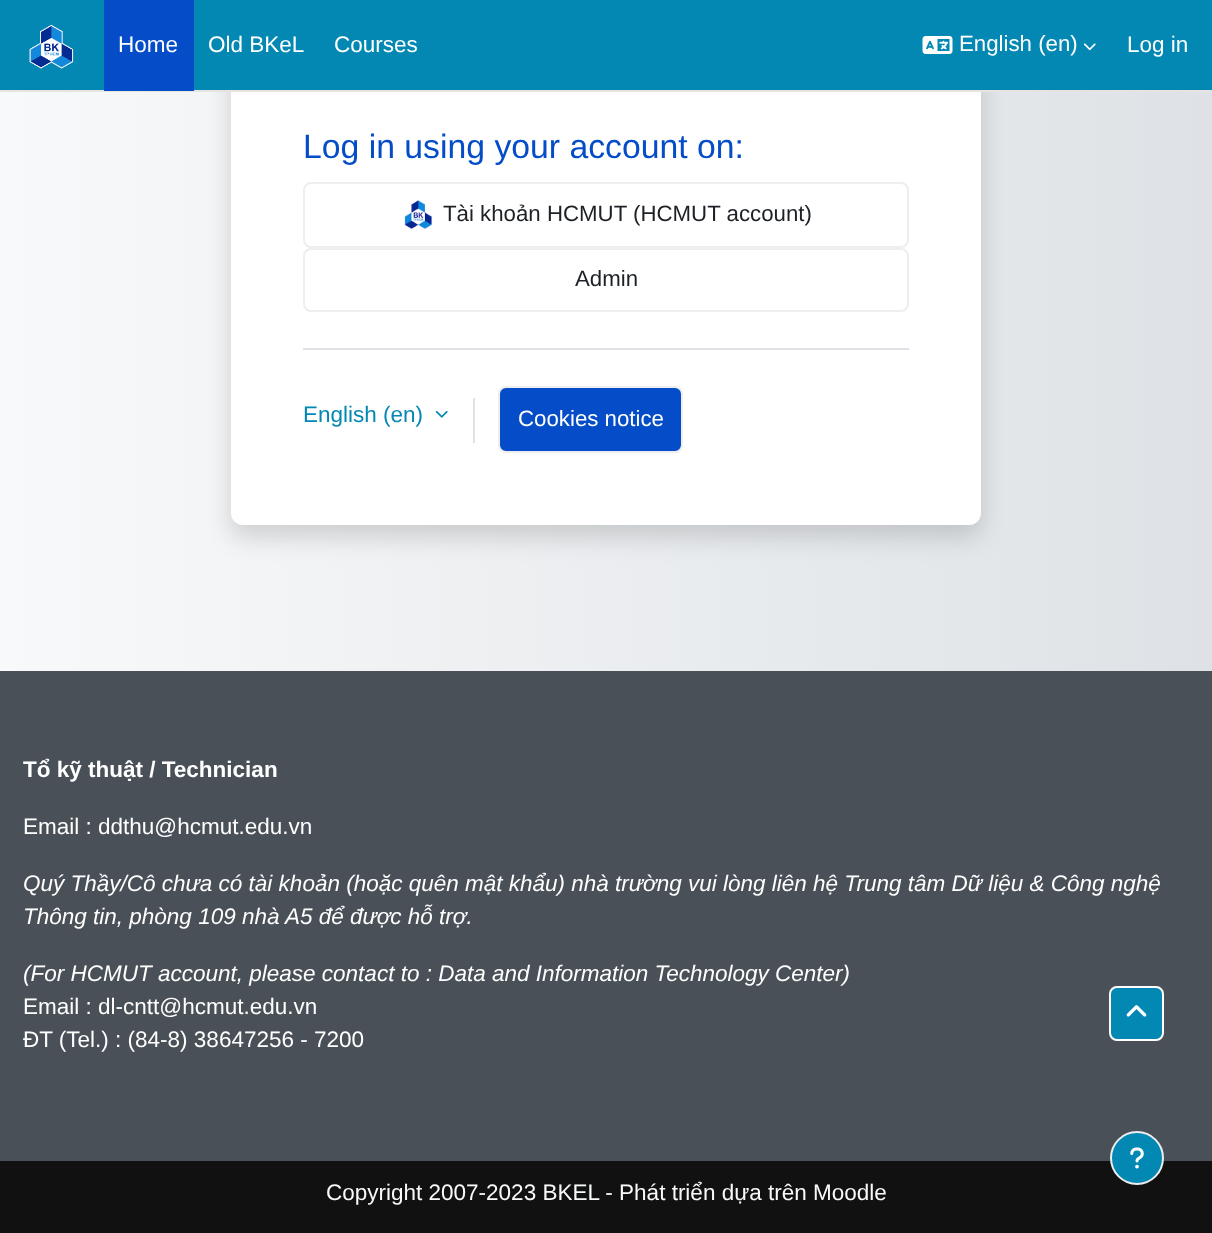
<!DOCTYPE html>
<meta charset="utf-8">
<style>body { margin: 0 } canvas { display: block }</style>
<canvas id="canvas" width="1212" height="1233"></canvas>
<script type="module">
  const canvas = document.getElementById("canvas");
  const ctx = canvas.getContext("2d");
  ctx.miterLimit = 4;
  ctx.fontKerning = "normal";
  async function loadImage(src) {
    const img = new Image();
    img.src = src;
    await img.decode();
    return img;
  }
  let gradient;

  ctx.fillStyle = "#111111";
  ctx.fillRect(0, 0, 1212, 1233);
  gradient = ctx.createLinearGradient(0, 144, 1212, 144);
  gradient.addColorStop(0, "#f8f9fa");
  gradient.addColorStop(1, "#dee2e6");
  ctx.fillStyle = gradient;
  ctx.fillRect(0, 92, 1212, 579);
  ctx.fillStyle = "rgba(0, 0, 0, 0.15)";
  ctx.filter = "blur(12px)";
  ctx.beginPath();
  ctx.roundRect(231, -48, 750, 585, 12);
  ctx.fill();
  ctx.filter = "none";
  ctx.fillStyle = "#ffffff";
  ctx.beginPath();
  ctx.roundRect(231, -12, 750, 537, 12);
  ctx.fill();
  ctx.fillStyle = "#0388b4";
  ctx.fillRect(0, 0, 1212, 90);
  ctx.fillStyle = "#e8e3e3";
  ctx.fillRect(0, 90, 1212, 2);
  ctx.drawImage(await loadImage("img1.png"), 29, 24, 45, 45);
  ctx.fillStyle = "#044cc8";
  ctx.fillRect(104, 0, 90, 91);
  ctx.font = "22.5px Liberation Sans";
  ctx.fillStyle = "#ffffff";
  ctx.fillText("Home", 118, 52);
  ctx.fillText("Old BKeL", 208, 52);
  ctx.fillText("Courses", 334, 52);
  ctx.drawImage(await loadImage("img2.png"), 922, 36, 31, 18);
  ctx.font = "22.25px Liberation Sans";
  ctx.fillText("English (en)", 959, 51);
  ctx.drawImage(await loadImage("img3.png"), 1083, 43, 13, 8);
  ctx.font = "22.5px Liberation Sans";
  ctx.fillText("Log in", 1127, 52);
  ctx.font = "33.75px Liberation Sans";
  ctx.fillStyle = "#044cc8";
  ctx.fillText("Log in using your account on:", 303, 158);
  ctx.beginPath();
  ctx.roundRect(304, 183, 604, 64, 7);
  ctx.strokeStyle = "#eeeeee";
  ctx.lineWidth = 2;
  ctx.stroke();
  ctx.drawImage(await loadImage("img4.png"), 404, 200, 29, 29);
  ctx.font = "22.25px Liberation Sans";
  ctx.fillStyle = "#1d2125";
  ctx.fillText("Tài khoản HCMUT (HCMUT account)", 443, 221);
  ctx.beginPath();
  ctx.roundRect(304, 249, 604, 62, 7);
  ctx.stroke();
  ctx.fillText("Admin", 575, 286);
  ctx.fillStyle = "#dee2e6";
  ctx.fillRect(303, 348, 606, 2);
  ctx.font = "22.5px Liberation Sans";
  ctx.fillStyle = "#0388b4";
  ctx.fillText("English (en)", 303, 422);
  ctx.drawImage(await loadImage("img5.png"), 435, 411, 13, 7);
  ctx.fillStyle = "#dee2e6";
  ctx.fillRect(473, 398, 2, 45);
  ctx.fillStyle = "#044cc8";
  ctx.beginPath();
  ctx.roundRect(499, 387, 183, 65, 7);
  ctx.fill();
  ctx.stroke();
  ctx.font = "22.25px Liberation Sans";
  ctx.fillStyle = "#ffffff";
  ctx.fillText("Cookies notice", 518, 426);
  ctx.fillStyle = "#495057";
  ctx.fillRect(0, 671, 1212, 490);
  ctx.font = "bold 22.5px Liberation Sans";
  ctx.fillStyle = "#ffffff";
  ctx.fillText("Tổ kỹ thuật / Technician", 23, 777);
  ctx.font = "22.5px Liberation Sans";
  ctx.fillText("Email : ddthu@hcmut.edu.vn", 23, 834);
  ctx.font = "italic 22.5px Liberation Sans";
  ctx.fillText("Quý Thầy/Cô chưa có tài khoản (hoặc quên mật khẩu) nhà trường vui lòng liên hệ Trung tâm Dữ liệu & Công nghệ", 23, 891);
  ctx.fillText("Thông tin, phòng 109 nhà A5 để được hỗ trợ.", 23, 924);
  ctx.fillText("(For HCMUT account, please contact to : Data and Information Technology Center)", 23, 981);
  ctx.font = "22.5px Liberation Sans";
  ctx.fillText("Email : dl-cntt@hcmut.edu.vn", 23, 1014);
  ctx.fillText("ĐT (Tel.) : (84-8) 38647256 - 7200", 23, 1047);
  ctx.fillStyle = "#0388b4";
  ctx.beginPath();
  ctx.arc(1137, 1158, 26, 0, Math.PI * 2);
  ctx.fill();
  ctx.stroke();
  ctx.drawImage(await loadImage("img6.png"), 1130, 1147, 14, 22);
  ctx.fillStyle = "#f8f9fa";
  ctx.fillText("Copyright 2007-2023 BKEL - Phát triển dựa trên Moodle", 326, 1200);
  ctx.fillStyle = "#0388b4";
  ctx.beginPath();
  ctx.roundRect(1110, 987, 53, 53, 7);
  ctx.fill();
  ctx.strokeStyle = "#ffffff";
  ctx.stroke();
  ctx.drawImage(await loadImage("img7.png"), 1126, 1005, 21, 12);
</script>
